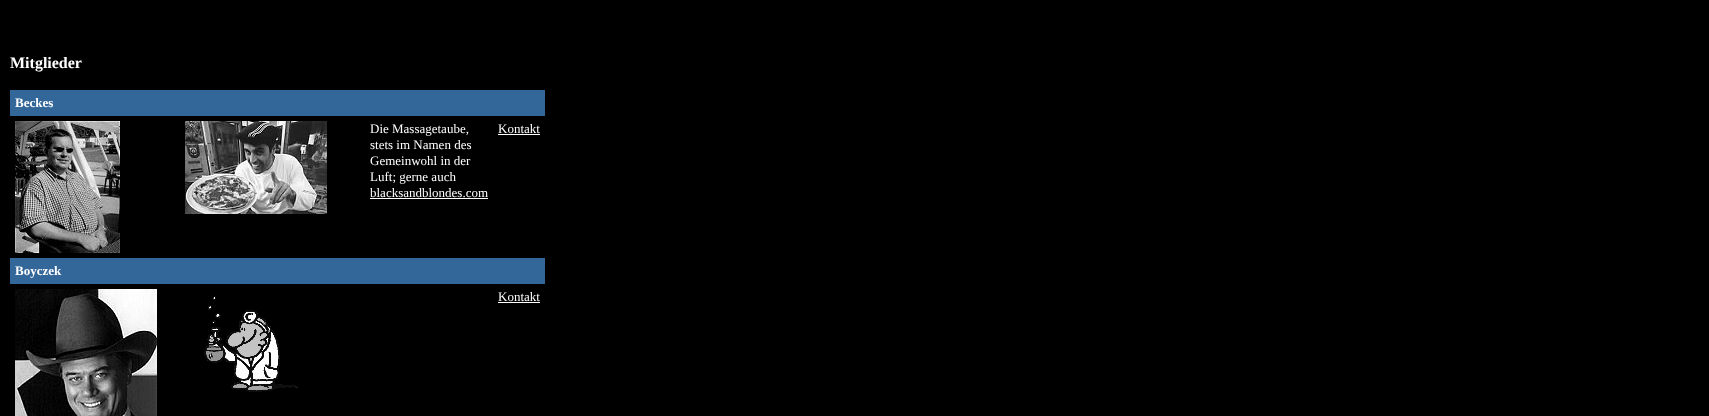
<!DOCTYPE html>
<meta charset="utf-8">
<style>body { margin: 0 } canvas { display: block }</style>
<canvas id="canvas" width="1709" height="416"></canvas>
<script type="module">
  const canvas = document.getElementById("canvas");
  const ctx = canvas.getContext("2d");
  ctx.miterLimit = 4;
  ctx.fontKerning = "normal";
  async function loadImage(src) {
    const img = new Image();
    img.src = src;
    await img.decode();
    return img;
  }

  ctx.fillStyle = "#000000";
  ctx.fillRect(0, 0, 1709, 416);
  ctx.font = "bold 16px Liberation Serif";
  ctx.fillStyle = "#ffffff";
  ctx.fillText("Mitglieder", 10, 68);
  ctx.fillStyle = "#336699";
  ctx.fillRect(10, 90, 535, 26);
  ctx.font = "bold 13px Liberation Serif";
  ctx.fillStyle = "#ffffff";
  ctx.fillText("Beckes", 15, 107);
  ctx.drawImage(await loadImage("img1.png"), 15, 121, 105, 132);
  ctx.drawImage(await loadImage("img2.png"), 185, 121, 142, 93);
  ctx.font = "13px Liberation Serif";
  ctx.fillText("Die Massagetaube,", 370, 133);
  ctx.fillText("stets im Namen des", 370, 149);
  ctx.fillText("Gemeinwohl in der", 370, 165);
  ctx.fillText("Luft; gerne auch", 370, 181);
  ctx.fillText("blacksandblondes.com", 370, 197);
  ctx.fillRect(370, 198, 118, 1);
  ctx.fillText("Kontakt", 498, 133);
  ctx.fillRect(498, 134, 42, 1);
  ctx.fillStyle = "#336699";
  ctx.fillRect(10, 258, 535, 26);
  ctx.font = "bold 13px Liberation Serif";
  ctx.fillStyle = "#ffffff";
  ctx.fillText("Boyczek", 15, 275);
  ctx.drawImage(await loadImage("img3.png"), 15, 289, 142, 127);
  ctx.drawImage(await loadImage("img4.png"), 204, 296, 94, 96);
  ctx.font = "13px Liberation Serif";
  ctx.fillText("Kontakt", 498, 301);
  ctx.fillRect(498, 302, 42, 1);
</script>
